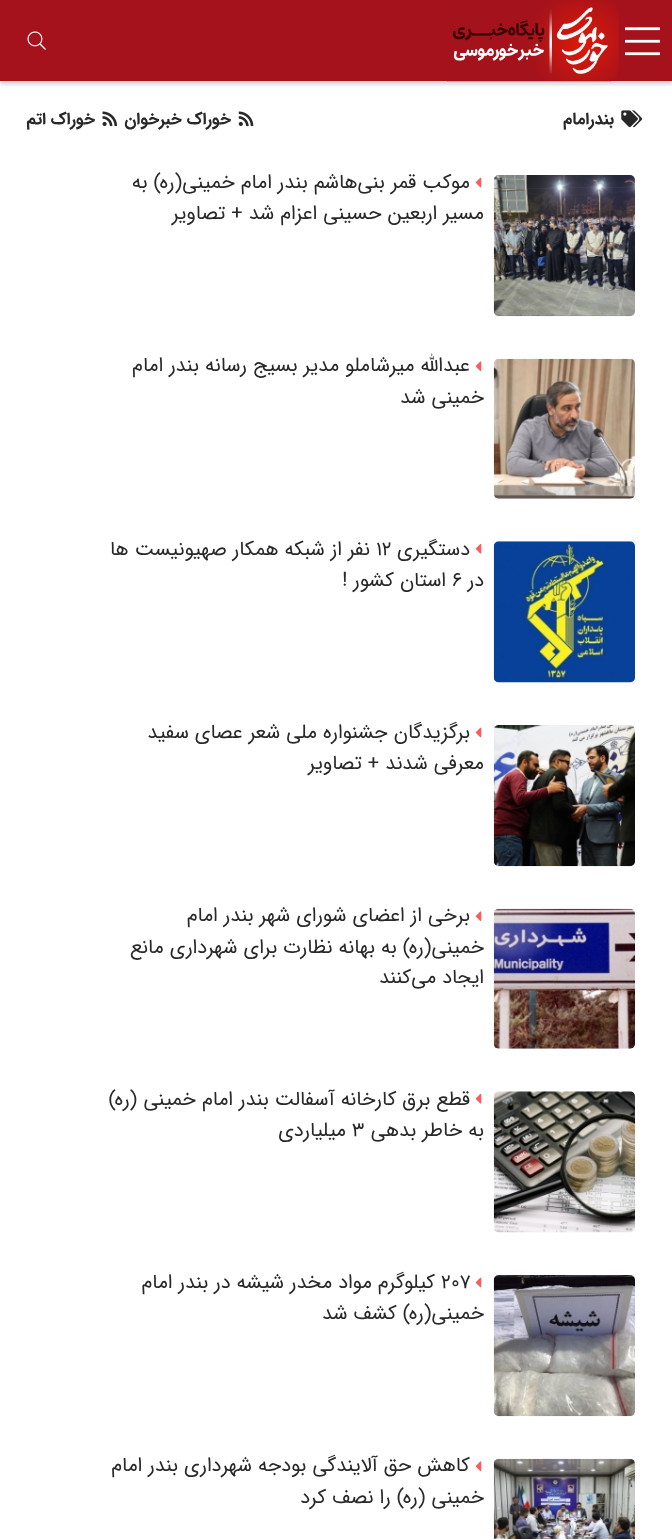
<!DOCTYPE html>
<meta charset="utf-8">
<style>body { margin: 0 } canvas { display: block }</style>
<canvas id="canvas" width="672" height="1539"></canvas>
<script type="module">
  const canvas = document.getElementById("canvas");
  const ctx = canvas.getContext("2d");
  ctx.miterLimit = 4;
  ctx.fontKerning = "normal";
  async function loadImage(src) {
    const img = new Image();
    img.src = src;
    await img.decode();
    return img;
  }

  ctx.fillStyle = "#ffffff";
  ctx.fillRect(0, 0, 672, 1539);
  ctx.fillStyle = "rgba(0, 0, 0, 0.2)";
  ctx.filter = "blur(2px)";
  ctx.beginPath();
  ctx.rect(0, 3, 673, 81);
  ctx.fill();
  ctx.filter = "none";
  ctx.fillStyle = "#a5121c";
  ctx.fillRect(0, 0, 672, 81);
  ctx.drawImage(await loadImage("img1.png"), 625, 27, 35, 29);
  ctx.drawImage(await loadImage("img2.png"), 446, 0, 173, 82);
  ctx.drawImage(await loadImage("img3.png"), 27, 31, 19, 19);
  ctx.drawImage(await loadImage("img4.png"), 621, 110, 22, 18);
  ctx.direction = "rtl";
  ctx.font = "bold 16.75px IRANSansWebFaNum";
  ctx.fillStyle = "#282828";
  ctx.fillText("بندرامام", 614, 124);
  ctx.drawImage(await loadImage("img5.png"), 238, 111, 16, 16);
  ctx.fillText("خوراک خبرخوان", 231, 124);
  ctx.drawImage(await loadImage("img6.png"), 102, 111, 16, 16);
  ctx.fillText("خوراک اتم", 95, 124);
  ctx.drawImage(await loadImage("img7.png"), 493, 175, 142, 142);
  ctx.drawImage(await loadImage("img8.png"), 475, 177, 7, 11);
  ctx.font = "20px IRANSansWebFaNum";
  ctx.fillText("موکب قمر بنی‌هاشم بندر امام خمینی(ره) به", 470, 188);
  ctx.fillText("مسیر اربعین حسینی اعزام شد + تصاویر", 484, 219);
  ctx.drawImage(await loadImage("img9.png"), 493, 358, 142, 141);
  ctx.drawImage(await loadImage("img10.png"), 475, 361, 7, 11);
  ctx.fillText("عبدالله میرشاملو مدیر بسیج رسانه بندر امام", 470, 371);
  ctx.fillText("خمینی شد", 484, 403);
  ctx.drawImage(await loadImage("img11.png"), 493, 541, 142, 142);
  ctx.drawImage(await loadImage("img12.png"), 475, 543, 7, 11);
  ctx.fillText("دستگیری", 470, 555);
  ctx.direction = "ltr";
  ctx.fillText("۱۲", 376, 555);
  ctx.direction = "rtl";
  ctx.fillText("نفر از شبکه همکار صهیونیست ها", 370, 555);
  ctx.fillText("در", 484, 586);
  ctx.direction = "ltr";
  ctx.fillText("۶", 452, 586);
  ctx.direction = "rtl";
  ctx.fillText("استان کشور !", 446, 586);
  ctx.drawImage(await loadImage("img13.png"), 493, 725, 142, 142);
  ctx.drawImage(await loadImage("img8.png"), 475, 727, 7, 11);
  ctx.fillText("برگزیدگان جشنواره ملی شعر عصای سفید", 470, 738);
  ctx.fillText("معرفی شدند + تصاویر", 484, 769);
  ctx.drawImage(await loadImage("img14.png"), 493, 908, 142, 141);
  ctx.drawImage(await loadImage("img10.png"), 475, 911, 7, 11);
  ctx.fillText("برخی از اعضای شورای شهر بندر امام", 470, 921);
  ctx.fillText("خمینی(ره) به بهانه نظارت برای شهرداری مانع", 484, 953);
  ctx.fillText("ایجاد می‌کنند", 484, 983);
  ctx.drawImage(await loadImage("img15.png"), 493, 1091, 142, 142);
  ctx.drawImage(await loadImage("img12.png"), 475, 1093, 7, 11);
  ctx.fillText("قطع برق کارخانه آسفالت بندر امام خمینی (ره)", 470, 1105);
  ctx.fillText("به خاطر بدهی", 484, 1136);
  ctx.direction = "ltr";
  ctx.fillText("۳", 352, 1136);
  ctx.direction = "rtl";
  ctx.fillText("میلیاردی", 346, 1136);
  ctx.drawImage(await loadImage("img16.png"), 493, 1275, 142, 142);
  ctx.drawImage(await loadImage("img8.png"), 475, 1277, 7, 11);
  ctx.direction = "ltr";
  ctx.fillText("۲۰۷", 441, 1288);
  ctx.direction = "rtl";
  ctx.fillText("کیلوگرم مواد مخدر شیشه در بندر امام", 435, 1288);
  ctx.fillText("خمینی(ره) کشف شد", 484, 1319);
  ctx.drawImage(await loadImage("img17.png"), 493, 1458, 142, 81);
  ctx.drawImage(await loadImage("img10.png"), 475, 1461, 7, 11);
  ctx.fillText("کاهش حق آلایندگی بودجه شهرداری بندر امام", 470, 1471);
  ctx.fillText("خمینی (ره) را نصف کرد", 484, 1503);
</script>
